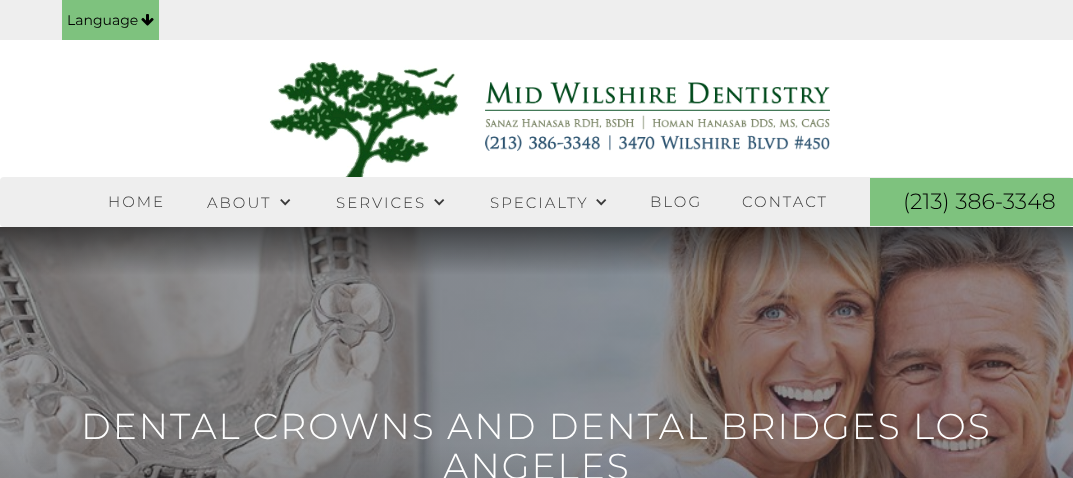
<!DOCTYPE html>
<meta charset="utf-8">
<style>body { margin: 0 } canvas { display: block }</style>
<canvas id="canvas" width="1073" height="478"></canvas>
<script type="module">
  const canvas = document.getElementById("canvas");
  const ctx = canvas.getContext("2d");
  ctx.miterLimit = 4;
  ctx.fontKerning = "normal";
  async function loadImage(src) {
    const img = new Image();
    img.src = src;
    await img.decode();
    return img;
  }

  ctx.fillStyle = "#ffffff";
  ctx.fillRect(0, 0, 1073, 478);
  ctx.fillStyle = "#eeeeee";
  ctx.fillRect(0, 0, 1073, 40);
  ctx.fillStyle = "#7ec27e";
  ctx.fillRect(62, 0, 97, 40);
  ctx.font = "14px Montserrat";
  ctx.fillStyle = "#000000";
  ctx.fillText("Language", 67, 25);
  ctx.drawImage(await loadImage("img1.png"), 141, 14, 13, 12);
  ctx.drawImage(await loadImage("img2.png"), 269, 61, 189, 116);
  ctx.drawImage(await loadImage("img3.png"), 485, 82, 345, 69);
  ctx.fillStyle = "#eeeeee";
  ctx.beginPath();
  ctx.roundRect(0, 177, 1073, 50, 4);
  ctx.fill();
  ctx.letterSpacing = "2px";
  ctx.font = "300 15px Montserrat";
  ctx.fillStyle = "#393939";
  ctx.fillText("HOME", 108, 207);
  ctx.fillText("ABOUT", 207, 208);
  ctx.drawImage(await loadImage("img4.png"), 280, 199, 11, 7);
  ctx.fillText("SERVICES", 336, 208);
  ctx.drawImage(await loadImage("img4.png"), 434, 199, 11, 7);
  ctx.fillText("SPECIALTY", 490, 208);
  ctx.drawImage(await loadImage("img4.png"), 596, 199, 11, 7);
  ctx.fillText("BLOG", 650, 207);
  ctx.fillText("CONTACT", 742, 207);
  ctx.fillStyle = "#7ec27e";
  ctx.fillRect(870, 178, 203, 48);
  ctx.letterSpacing = "0px";
  ctx.font = "300 22px Montserrat";
  ctx.fillStyle = "#000000";
  ctx.fillText("(213) 386-3348", 903, 209);
  ctx.drawImage(await loadImage("img5.png"), 0, 227, 1073, 251);
  ctx.letterSpacing = "2px";
  ctx.font = "300 36px Montserrat";
  ctx.fillStyle = "#ffffff";
  ctx.fillText("DENTAL CROWNS AND DENTAL BRIDGES LOS", 81, 439);
  ctx.fillText("ANGELES", 443, 479);
</script>
